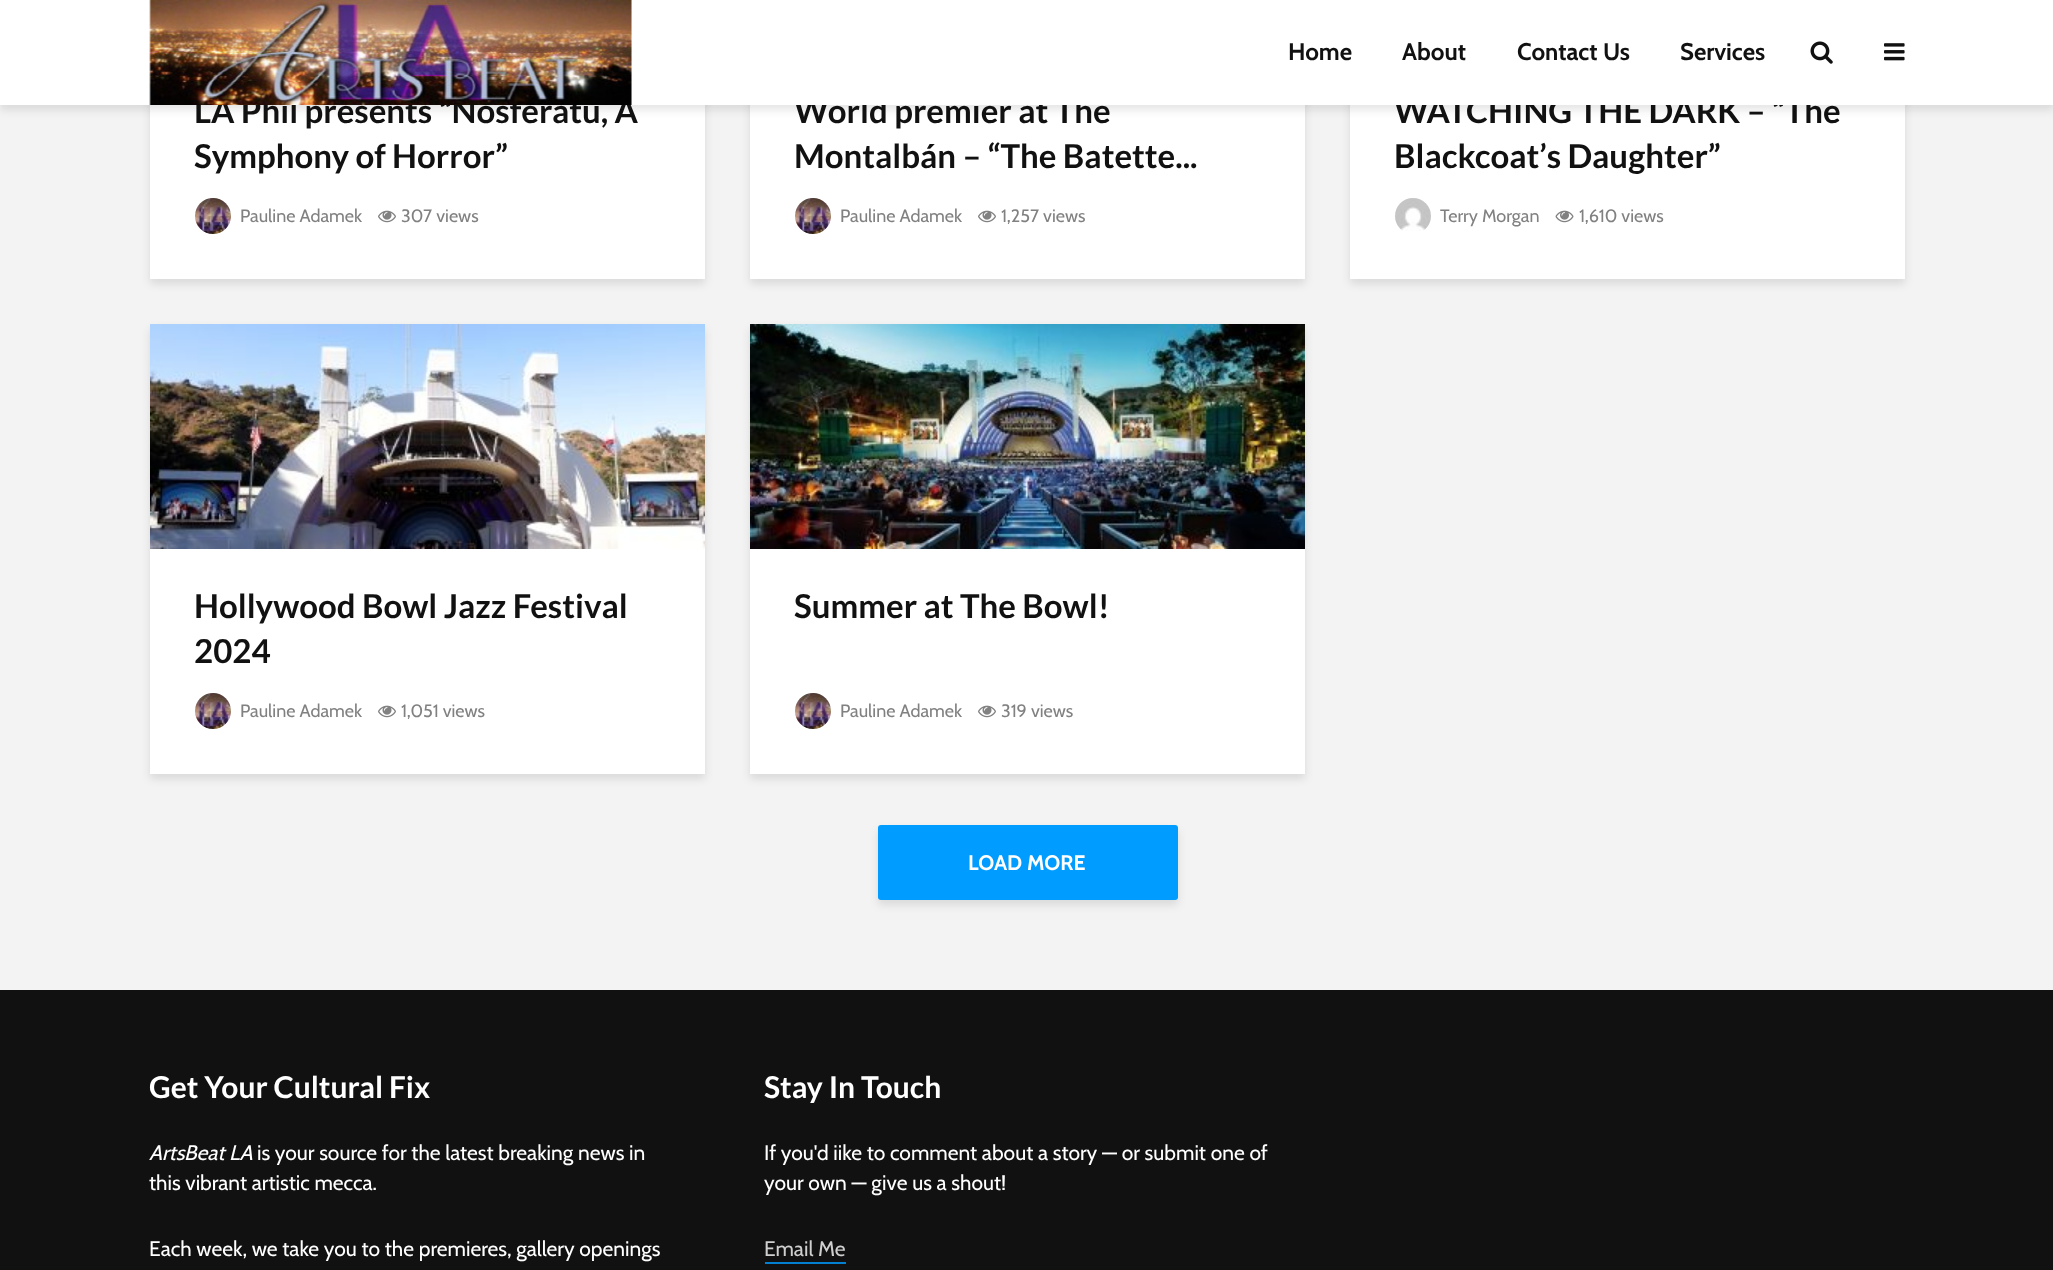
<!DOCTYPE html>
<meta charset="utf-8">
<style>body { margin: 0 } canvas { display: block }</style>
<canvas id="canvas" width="2053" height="1270"></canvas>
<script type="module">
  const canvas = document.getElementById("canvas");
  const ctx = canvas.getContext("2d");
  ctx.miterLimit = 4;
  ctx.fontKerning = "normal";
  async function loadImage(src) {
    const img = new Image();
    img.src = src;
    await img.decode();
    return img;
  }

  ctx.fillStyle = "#f3f3f3";
  ctx.fillRect(0, 0, 2053, 1270);
  ctx.fillStyle = "rgba(0, 1, 1, 0.1)";
  ctx.filter = "blur(4px)";
  ctx.beginPath();
  ctx.rect(150, -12, 555, 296);
  ctx.fill();
  ctx.filter = "none";
  ctx.fillStyle = "#ffffff";
  ctx.fillRect(150, 105, 555, 174);
  ctx.fillStyle = "rgba(0, 1, 1, 0.1)";
  ctx.filter = "blur(4px)";
  ctx.beginPath();
  ctx.rect(750, -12, 555, 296);
  ctx.fill();
  ctx.filter = "none";
  ctx.fillStyle = "#ffffff";
  ctx.fillRect(750, 105, 555, 174);
  ctx.fillStyle = "rgba(0, 1, 1, 0.1)";
  ctx.filter = "blur(4px)";
  ctx.beginPath();
  ctx.rect(1350, -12, 555, 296);
  ctx.fill();
  ctx.filter = "none";
  ctx.fillStyle = "#ffffff";
  ctx.fillRect(1350, 105, 555, 174);
  ctx.fillStyle = "rgba(0, 1, 1, 0.1)";
  ctx.filter = "blur(4px)";
  ctx.beginPath();
  ctx.rect(0, 5, 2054, 105);
  ctx.fill();
  ctx.filter = "none";
  ctx.font = "bold 33px Lato";
  ctx.fillStyle = "#111111";
  ctx.fillText("LA Phil presents “Nosferatu, A", 194, 123);
  ctx.fillText("World premier at The", 794, 123);
  ctx.fillText("WATCHING THE DARK – “The", 1394, 123);
  ctx.fillStyle = "#ffffff";
  ctx.fillRect(0, 0, 2053, 105);
  ctx.drawImage(await loadImage("img1.png"), 149, 0, 483, 105);
  ctx.font = "bold 24px Cabin";
  ctx.fillStyle = "#111111";
  ctx.fillText("Home", 1288, 60);
  ctx.fillText("About", 1402, 60);
  ctx.fillText("Contact Us", 1517, 60);
  ctx.fillText("Services", 1680, 60);
  ctx.drawImage(await loadImage("img2.png"), 1810, 41, 23, 23);
  ctx.drawImage(await loadImage("img3.png"), 1884, 43, 21, 18);
  ctx.font = "bold 33px Lato";
  ctx.fillText("Symphony of Horror”", 194, 168);
  ctx.drawImage(await loadImage("img4.png"), 195, 198, 36, 36);
  ctx.font = "18px Cabin";
  ctx.fillStyle = "#818181";
  ctx.fillText("Pauline Adamek", 240, 222);
  ctx.drawImage(await loadImage("img5.png"), 378, 210, 18, 13);
  ctx.fillText("307 views", 401, 222);
  ctx.font = "bold 33px Lato";
  ctx.fillStyle = "#111111";
  ctx.fillText("Montalbán – “The Batette...", 794, 168);
  ctx.drawImage(await loadImage("img4.png"), 795, 198, 36, 36);
  ctx.font = "18px Cabin";
  ctx.fillStyle = "#818181";
  ctx.fillText("Pauline Adamek", 840, 222);
  ctx.drawImage(await loadImage("img5.png"), 978, 210, 18, 13);
  ctx.fillText("1,257 views", 1001, 222);
  ctx.font = "bold 33px Lato";
  ctx.fillStyle = "#111111";
  ctx.fillText("Blackcoat’s Daughter”", 1394, 168);
  ctx.drawImage(await loadImage("img6.png"), 1395, 198, 36, 33);
  ctx.font = "18px Cabin";
  ctx.fillStyle = "#818181";
  ctx.fillText("Terry Morgan", 1440, 222);
  ctx.drawImage(await loadImage("img7.png"), 1555, 210, 19, 13);
  ctx.fillText("1,610 views", 1579, 222);
  ctx.fillStyle = "rgba(0, 1, 1, 0.1)";
  ctx.filter = "blur(4px)";
  ctx.beginPath();
  ctx.rect(150, 329, 555, 450);
  ctx.fill();
  ctx.filter = "none";
  ctx.fillStyle = "#ffffff";
  ctx.fillRect(150, 549, 555, 225);
  ctx.drawImage(await loadImage("img8.png"), 150, 324, 555, 225);
  ctx.font = "bold 33px Lato";
  ctx.fillStyle = "#111111";
  ctx.fillText("Hollywood Bowl Jazz Festival", 194, 618);
  ctx.fillText("2024", 194, 663);
  ctx.drawImage(await loadImage("img4.png"), 195, 693, 36, 36);
  ctx.font = "18px Cabin";
  ctx.fillStyle = "#818181";
  ctx.fillText("Pauline Adamek", 240, 717);
  ctx.drawImage(await loadImage("img5.png"), 378, 705, 18, 13);
  ctx.fillText("1,051 views", 401, 717);
  ctx.fillStyle = "rgba(0, 1, 1, 0.1)";
  ctx.filter = "blur(4px)";
  ctx.beginPath();
  ctx.rect(750, 329, 555, 450);
  ctx.fill();
  ctx.filter = "none";
  ctx.fillStyle = "#ffffff";
  ctx.fillRect(750, 549, 555, 225);
  ctx.drawImage(await loadImage("img9.png"), 750, 324, 555, 225);
  ctx.font = "bold 33px Lato";
  ctx.fillStyle = "#111111";
  ctx.fillText("Summer at The Bowl!", 794, 618);
  ctx.drawImage(await loadImage("img4.png"), 795, 693, 36, 36);
  ctx.font = "18px Cabin";
  ctx.fillStyle = "#818181";
  ctx.fillText("Pauline Adamek", 840, 717);
  ctx.drawImage(await loadImage("img5.png"), 978, 705, 18, 13);
  ctx.fillText("319 views", 1001, 717);
  ctx.fillStyle = "rgba(0, 0, 0, 0.1)";
  ctx.filter = "blur(4px)";
  ctx.beginPath();
  ctx.roundRect(878, 830, 300, 75, 3);
  ctx.fill();
  ctx.filter = "none";
  ctx.fillStyle = "#009cff";
  ctx.beginPath();
  ctx.roundRect(878, 825, 300, 75, 3);
  ctx.fill();
  ctx.font = "bold 21px Cabin";
  ctx.fillStyle = "#ffffff";
  ctx.fillText("LOAD MORE", 968, 870);
  ctx.fillStyle = "#111111";
  ctx.fillRect(0, 990, 2053, 280);
  ctx.font = "bold 30px Lato";
  ctx.fillStyle = "#ffffff";
  ctx.fillText("Get Your Cultural Fix", 149, 1098);
  ctx.font = "italic 21px Cabin";
  ctx.fillText("ArtsBeat LA", 149, 1160);
  ctx.font = "21px Cabin";
  ctx.fillText("is your source for the latest breaking news in", 257, 1160);
  ctx.fillText("this vibrant artistic mecca.", 149, 1190);
  ctx.fillText("Each week, we take you to the premieres, gallery openings", 149, 1256);
  ctx.font = "bold 30px Lato";
  ctx.fillText("Stay In Touch", 764, 1098);
  ctx.font = "21px Cabin";
  ctx.fillText("If you'd iike to comment about a story — or submit one of", 764, 1160);
  ctx.fillText("your own — give us a shout!", 764, 1190);
  ctx.fillStyle = "#cfcfcf";
  ctx.fillText("Email Me", 764, 1256);
  ctx.fillStyle = "#0380cf";
  ctx.fillRect(765, 1262, 81, 2);
</script>
